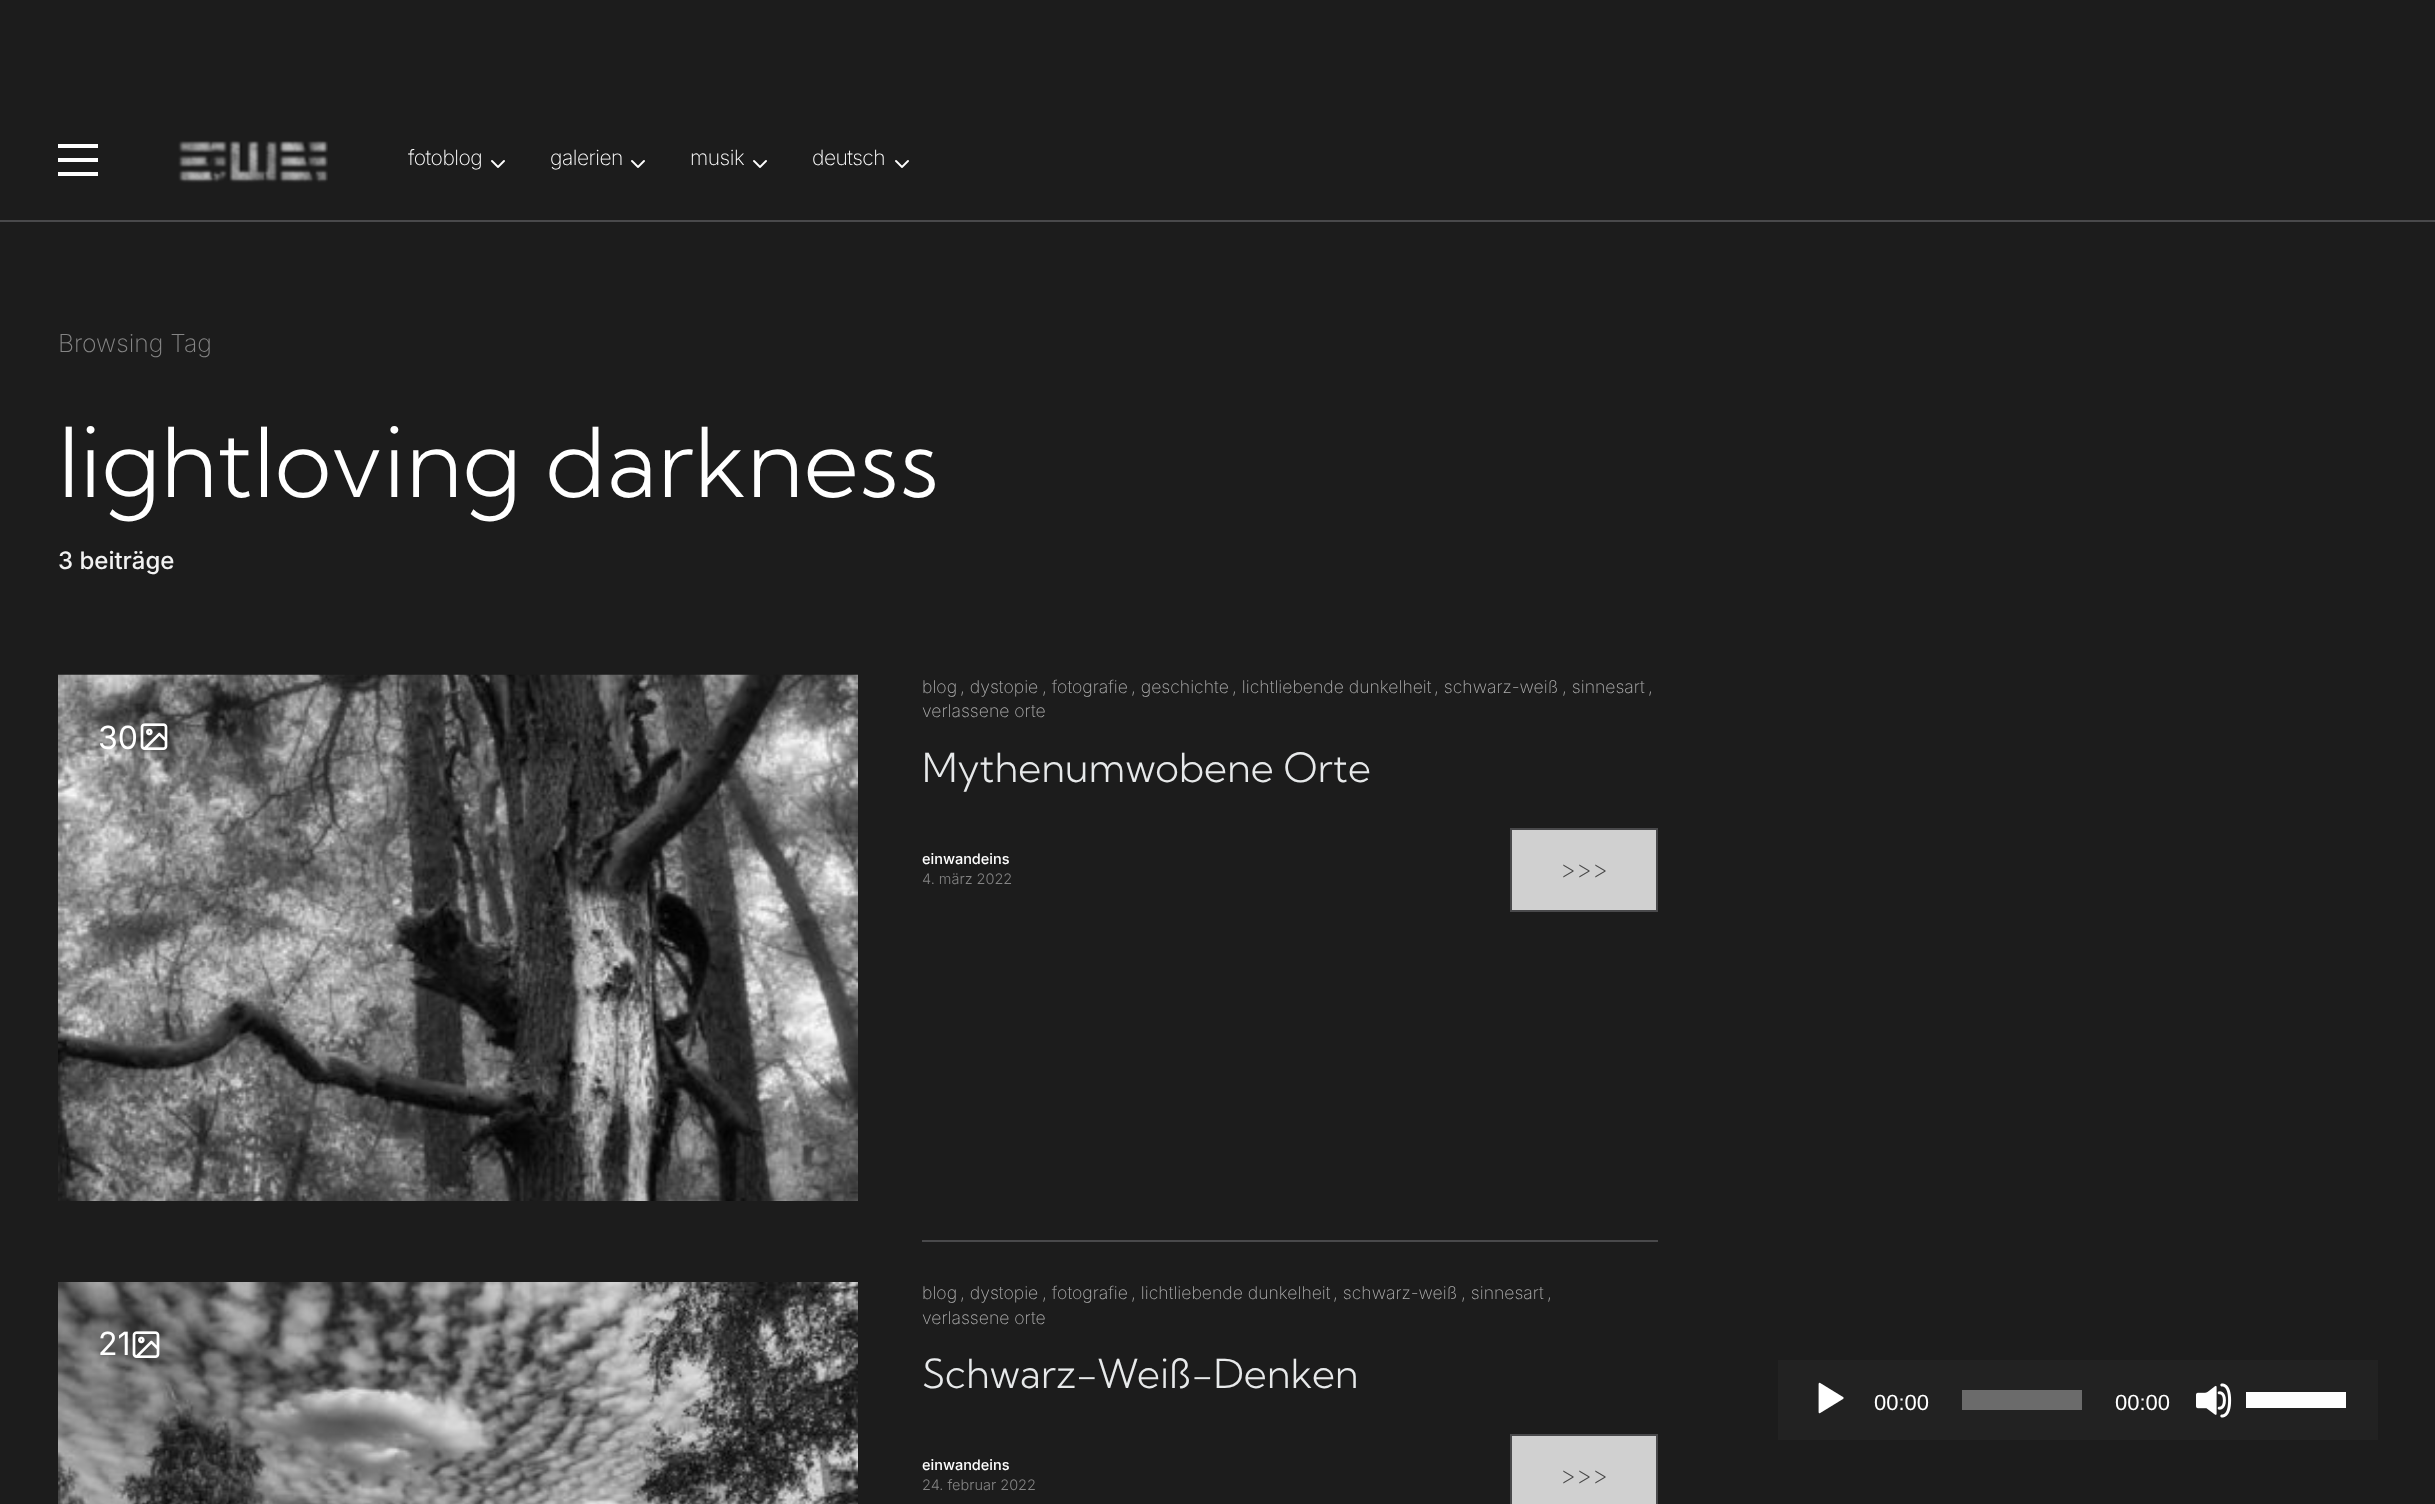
<!DOCTYPE html>
<meta charset="utf-8">
<style>body { margin: 0 } canvas { display: block }</style>
<canvas id="canvas" width="2435" height="1504"></canvas>
<script type="module">
  const canvas = document.getElementById("canvas");
  const ctx = canvas.getContext("2d");
  ctx.miterLimit = 4;
  ctx.fontKerning = "normal";
  async function loadImage(src) {
    const img = new Image();
    img.src = src;
    await img.decode();
    return img;
  }

  ctx.fillStyle = "#1c1c1c";
  ctx.fillRect(0, 0, 2435, 1504);
  ctx.fillStyle = "#49494b";
  ctx.fillRect(0, 220, 2435, 2);
  ctx.fillStyle = "#ffffff";
  ctx.fillRect(58, 144, 40, 4);
  ctx.fillRect(58, 158, 40, 4);
  ctx.fillRect(58, 172, 40, 4);
  ctx.drawImage(await loadImage("img1.png"), 178, 140, 150, 43);
  ctx.letterSpacing = "-0.5px";
  ctx.font = "200 21px Inter";
  ctx.fillText("fotoblog", 408, 165);
  ctx.drawImage(await loadImage("img2.png"), 491, 160, 14, 8);
  ctx.fillText("galerien", 550, 165);
  ctx.drawImage(await loadImage("img2.png"), 631, 160, 14, 8);
  ctx.fillText("musik", 690, 165);
  ctx.drawImage(await loadImage("img2.png"), 753, 160, 14, 8);
  ctx.fillText("deutsch", 812, 165);
  ctx.drawImage(await loadImage("img2.png"), 895, 160, 14, 8);
  ctx.letterSpacing = "0px";
  ctx.font = "200 24.75px Inter";
  ctx.fillStyle = "#858585";
  ctx.fillText("Browsing Tag", 58, 352);
  ctx.font = "300 96px Kumbh Sans";
  ctx.fillStyle = "#ffffff";
  ctx.fillText("lightloving darkness", 58, 497);
  ctx.font = "500 24px Inter";
  ctx.fillStyle = "#f2f2f2";
  ctx.fillText("3 beiträge", 58, 569);
  ctx.drawImage(await loadImage("img3.png"), 58, 674, 800, 527);
  ctx.font = "32px Inter";
  ctx.fillStyle = "#ffffff";
  ctx.fillText("30", 98, 749);
  ctx.drawImage(await loadImage("img4.png"), 140, 723, 28, 27);
  ctx.font = "200 17.6px Inter";
  ctx.fillStyle = "#adadad";
  ctx.fillText("blog", 922, 693);
  ctx.fillText(", dystopie", 960, 693);
  ctx.fillText(", fotografie", 1042, 693);
  ctx.fillText(", geschichte", 1131, 693);
  ctx.fillText(", lichtliebende dunkelheit", 1232, 693);
  ctx.fillText(", schwarz-weiß", 1434, 693);
  ctx.fillText(", sinnesart", 1562, 693);
  ctx.fillText(",", 1648, 693);
  ctx.fillText("verlassene orte", 922, 717);
  ctx.font = "300 40px Kumbh Sans";
  ctx.fillStyle = "#e7e9ea";
  ctx.fillText("Mythenumwobene Orte", 922, 782);
  ctx.font = "500 14.5px Inter";
  ctx.fillStyle = "#ffffff";
  ctx.fillText("einwandeins", 922, 864);
  ctx.font = "300 14.5px Inter";
  ctx.fillStyle = "#858585";
  ctx.fillText("4. märz 2022", 922, 884);
  ctx.fillStyle = "#d0d0d0";
  ctx.beginPath();
  ctx.rect(1511, 829, 146, 82);
  ctx.fill();
  ctx.strokeStyle = "#49494b";
  ctx.lineWidth = 2;
  ctx.stroke();
  ctx.font = "200 24.75px Inter";
  ctx.fillStyle = "#484848";
  ctx.fillText(">>>", 1560, 878);
  ctx.fillStyle = "#49494b";
  ctx.fillRect(922, 1240, 736, 2);
  ctx.drawImage(await loadImage("img5.png"), 58, 1282, 800, 222);
  ctx.font = "32px Inter";
  ctx.fillStyle = "#ffffff";
  ctx.fillText("21", 98, 1355);
  ctx.drawImage(await loadImage("img6.png"), 132, 1331, 28, 27);
  ctx.font = "200 17.6px Inter";
  ctx.fillStyle = "#adadad";
  ctx.fillText("blog", 922, 1299);
  ctx.fillText(", dystopie", 960, 1299);
  ctx.fillText(", fotografie", 1042, 1299);
  ctx.fillText(", lichtliebende dunkelheit", 1131, 1299);
  ctx.fillText(", schwarz-weiß", 1333, 1299);
  ctx.fillText(", sinnesart", 1461, 1299);
  ctx.fillText(",", 1547, 1299);
  ctx.fillText("verlassene orte", 922, 1324);
  ctx.font = "300 40px Kumbh Sans";
  ctx.fillStyle = "#e7e9ea";
  ctx.fillText("Schwarz-Weiß-Denken", 922, 1388);
  ctx.font = "500 14.5px Inter";
  ctx.fillStyle = "#ffffff";
  ctx.fillText("einwandeins", 922, 1470);
  ctx.font = "300 14.5px Inter";
  ctx.fillStyle = "#858585";
  ctx.fillText("24. februar 2022", 922, 1490);
  ctx.fillStyle = "#d0d0d0";
  ctx.beginPath();
  ctx.rect(1511, 1435, 146, 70);
  ctx.fill();
  ctx.stroke();
  ctx.font = "200 24.75px Inter";
  ctx.fillStyle = "#484848";
  ctx.fillText(">>>", 1560, 1484);
  ctx.fillStyle = "#222222";
  ctx.fillRect(1778, 1360, 600, 80);
  ctx.drawImage(await loadImage("img7.png"), 1818, 1382, 26, 32);
  ctx.font = "22px Liberation Sans";
  ctx.fillStyle = "#ffffff";
  ctx.fillText("00:00", 1874, 1410);
  ctx.fillStyle = "#6b6b6b";
  ctx.fillRect(1962, 1390, 120, 20);
  ctx.fillStyle = "#ffffff";
  ctx.fillText("00:00", 2115, 1410);
  ctx.drawImage(await loadImage("img8.png"), 2196, 1383, 36, 35);
  ctx.fillRect(2246, 1392, 100, 16);
</script>
